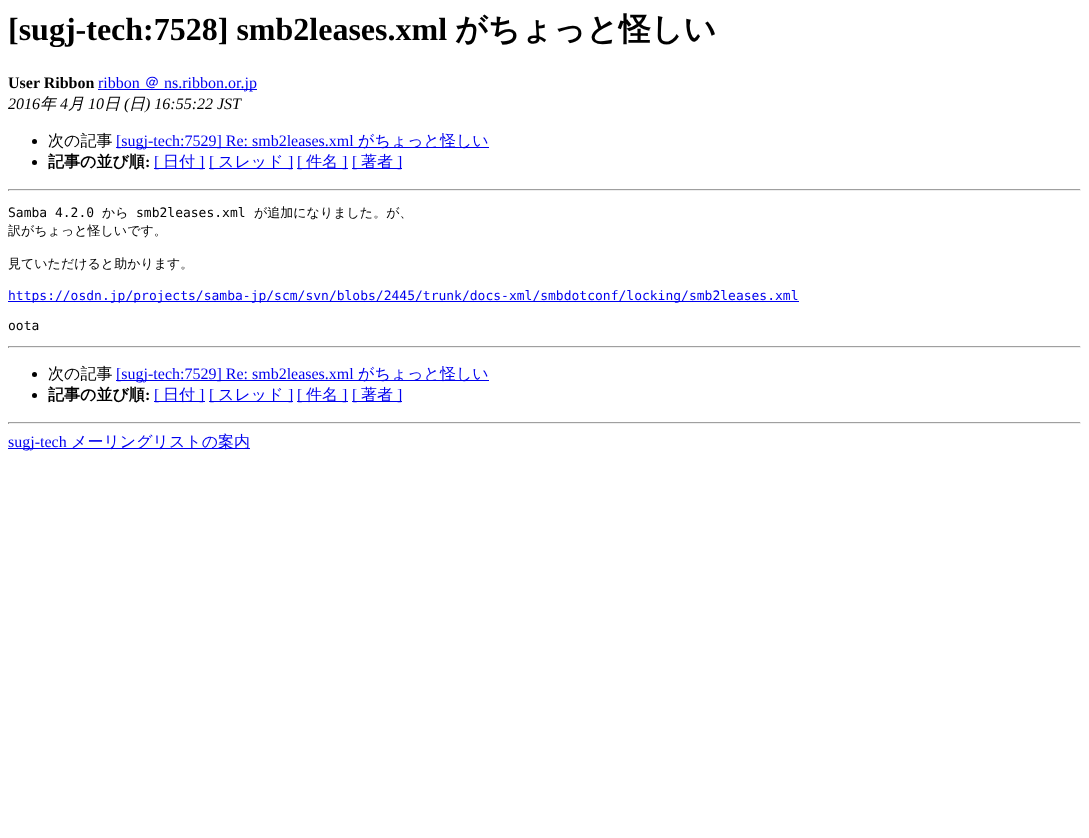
<!DOCTYPE html>
<meta charset="utf-8">
<style>body { margin: 0 } canvas { display: block }</style>
<canvas id="canvas" width="1089" height="838"></canvas>
<script type="module">
  const canvas = document.getElementById("canvas");
  const ctx = canvas.getContext("2d");
  ctx.miterLimit = 4;
  ctx.fontKerning = "normal";

  ctx.fillStyle = "#ffffff";
  ctx.fillRect(0, 0, 1089, 838);
  ctx.font = "bold 32px Liberation Serif";
  ctx.fillStyle = "#000000";
  ctx.fillText("[sugj-tech:7528] smb2leases.xml", 8, 40);
  ctx.font = "bold 32px WenQuanYi Zen Hei";
  ctx.fillText("がちょっと怪しい", 455, 40);
  ctx.font = "bold 16px Liberation Serif";
  ctx.fillText("User Ribbon", 8, 88);
  ctx.font = "16px Liberation Serif";
  ctx.fillStyle = "#0000ee";
  ctx.fillText("ribbon", 98, 88);
  ctx.font = "500 16px WenQuanYi Zen Hei";
  ctx.fillText("＠", 144, 88);
  ctx.fillRect(98, 89, 159, 1);
  ctx.font = "16px Liberation Serif";
  ctx.fillText("ns.ribbon.or.jp", 164, 88);
  ctx.font = "italic 16px Liberation Serif";
  ctx.fillStyle = "#000000";
  ctx.fillText("2016", 8, 109);
  ctx.font = "italic 500 16px WenQuanYi Zen Hei";
  ctx.fillText("年", 40, 109);
  ctx.font = "italic 16px Liberation Serif";
  ctx.fillText("4", 60, 109);
  ctx.font = "italic 500 16px WenQuanYi Zen Hei";
  ctx.fillText("月", 68, 109);
  ctx.font = "italic 16px Liberation Serif";
  ctx.fillText("10", 88, 109);
  ctx.font = "italic 500 16px WenQuanYi Zen Hei";
  ctx.fillText("日", 104, 109);
  ctx.font = "italic 16px Liberation Serif";
  ctx.fillText("(", 124, 109);
  ctx.font = "italic 500 16px WenQuanYi Zen Hei";
  ctx.fillText("日", 129, 109);
  ctx.font = "italic 16px Liberation Serif";
  ctx.fillText(") 16:55:22 JST", 145, 109);
  ctx.beginPath();
  ctx.arc(34.5, 141.5, 2.5, 0, Math.PI * 2);
  ctx.fill();
  ctx.font = "500 16px WenQuanYi Zen Hei";
  ctx.fillText("次の記事", 48, 146);
  ctx.fillStyle = "#0000ee";
  ctx.fillRect(116, 147, 373, 1);
  ctx.font = "16px Liberation Serif";
  ctx.fillText("[sugj-tech:7529] Re: smb2leases.xml", 116, 146);
  ctx.font = "500 16px WenQuanYi Zen Hei";
  ctx.fillText("がちょっと怪しい", 358, 146);
  ctx.fillStyle = "#000000";
  ctx.beginPath();
  ctx.arc(34.5, 162.5, 2.5, 0, Math.PI * 2);
  ctx.fill();
  ctx.font = "bold 16px WenQuanYi Zen Hei";
  ctx.fillText("記事の並び順", 48, 167);
  ctx.font = "bold 16px Liberation Serif";
  ctx.fillText(":", 145, 167);
  ctx.fillStyle = "#0000ee";
  ctx.fillRect(154, 168, 51, 1);
  ctx.font = "16px Liberation Serif";
  ctx.fillText("[", 154, 167);
  ctx.font = "500 16px WenQuanYi Zen Hei";
  ctx.fillText("日付", 163, 167);
  ctx.font = "16px Liberation Serif";
  ctx.fillText("]", 199, 167);
  ctx.fillRect(209, 168, 84, 1);
  ctx.fillText("[", 209, 167);
  ctx.font = "500 16px WenQuanYi Zen Hei";
  ctx.fillText("スレッド", 218, 167);
  ctx.font = "16px Liberation Serif";
  ctx.fillText("]", 288, 167);
  ctx.fillRect(297, 168, 51, 1);
  ctx.fillText("[", 297, 167);
  ctx.font = "500 16px WenQuanYi Zen Hei";
  ctx.fillText("件名", 306, 167);
  ctx.font = "16px Liberation Serif";
  ctx.fillText("]", 342, 167);
  ctx.fillRect(352, 168, 50, 1);
  ctx.fillText("[", 352, 167);
  ctx.font = "500 16px WenQuanYi Zen Hei";
  ctx.fillText("著者", 361, 167);
  ctx.font = "16px Liberation Serif";
  ctx.fillText("]", 397, 167);
  ctx.fillStyle = "#9f9f9f";
  ctx.fillRect(8, 189, 1073, 1);
  ctx.fillStyle = "#eeeeee";
  ctx.fillRect(1080, 189, 1, 2);
  ctx.fillRect(8, 190, 1073, 1);
  ctx.fillStyle = "#9f9f9f";
  ctx.fillRect(8, 189, 1, 2);
  ctx.font = "13px DejaVu Sans Mono";
  ctx.fillStyle = "#000000";
  ctx.fillText("Samba 4.2.0", 8, 217);
  ctx.font = "500 13px WenQuanYi Zen Hei";
  ctx.fillText("から", 102, 217);
  ctx.font = "13px DejaVu Sans Mono";
  ctx.fillText("smb2leases.xml", 136, 217);
  ctx.font = "500 13px WenQuanYi Zen Hei";
  ctx.fillText("が追加になりました。が、", 254, 217);
  ctx.fillText("訳がちょっと怪しいです。", 8, 235);
  ctx.fillText("見ていただけると助かります。", 8, 268);
  ctx.fillStyle = "#0000ee";
  ctx.fillRect(8, 301, 791, 1);
  ctx.font = "13px DejaVu Sans Mono";
  ctx.fillText("https://osdn.jp/projects/samba-jp/scm/svn/blobs/2445/trunk/docs-xml/smbdotconf/locking/smb2leases.xml", 8, 300);
  ctx.fillStyle = "#000000";
  ctx.fillText("oota", 8, 330);
  ctx.fillStyle = "#9f9f9f";
  ctx.fillRect(8, 346, 1073, 1);
  ctx.fillStyle = "#eeeeee";
  ctx.fillRect(1080, 346, 1, 2);
  ctx.fillRect(8, 347, 1073, 1);
  ctx.fillStyle = "#9f9f9f";
  ctx.fillRect(8, 346, 1, 2);
  ctx.fillStyle = "#000000";
  ctx.beginPath();
  ctx.arc(34.5, 374.5, 2.5, 0, Math.PI * 2);
  ctx.fill();
  ctx.font = "500 16px WenQuanYi Zen Hei";
  ctx.fillText("次の記事", 48, 379);
  ctx.fillStyle = "#0000ee";
  ctx.fillRect(116, 380, 373, 1);
  ctx.font = "16px Liberation Serif";
  ctx.fillText("[sugj-tech:7529] Re: smb2leases.xml", 116, 379);
  ctx.font = "500 16px WenQuanYi Zen Hei";
  ctx.fillText("がちょっと怪しい", 358, 379);
  ctx.fillStyle = "#000000";
  ctx.beginPath();
  ctx.arc(34.5, 395.5, 2.5, 0, Math.PI * 2);
  ctx.fill();
  ctx.font = "bold 16px WenQuanYi Zen Hei";
  ctx.fillText("記事の並び順", 48, 400);
  ctx.font = "bold 16px Liberation Serif";
  ctx.fillText(":", 145, 400);
  ctx.fillStyle = "#0000ee";
  ctx.fillRect(154, 401, 51, 1);
  ctx.font = "16px Liberation Serif";
  ctx.fillText("[", 154, 400);
  ctx.font = "500 16px WenQuanYi Zen Hei";
  ctx.fillText("日付", 163, 400);
  ctx.font = "16px Liberation Serif";
  ctx.fillText("]", 199, 400);
  ctx.fillRect(209, 401, 84, 1);
  ctx.fillText("[", 209, 400);
  ctx.font = "500 16px WenQuanYi Zen Hei";
  ctx.fillText("スレッド", 218, 400);
  ctx.font = "16px Liberation Serif";
  ctx.fillText("]", 288, 400);
  ctx.fillRect(297, 401, 51, 1);
  ctx.fillText("[", 297, 400);
  ctx.font = "500 16px WenQuanYi Zen Hei";
  ctx.fillText("件名", 306, 400);
  ctx.font = "16px Liberation Serif";
  ctx.fillText("]", 342, 400);
  ctx.fillRect(352, 401, 50, 1);
  ctx.fillText("[", 352, 400);
  ctx.font = "500 16px WenQuanYi Zen Hei";
  ctx.fillText("著者", 361, 400);
  ctx.font = "16px Liberation Serif";
  ctx.fillText("]", 397, 400);
  ctx.fillStyle = "#9f9f9f";
  ctx.fillRect(8, 422, 1073, 1);
  ctx.fillStyle = "#eeeeee";
  ctx.fillRect(1080, 422, 1, 2);
  ctx.fillRect(8, 423, 1073, 1);
  ctx.fillStyle = "#9f9f9f";
  ctx.fillRect(8, 422, 1, 2);
  ctx.fillStyle = "#0000ee";
  ctx.fillRect(8, 448, 242, 1);
  ctx.fillText("sugj-tech", 8, 447);
  ctx.font = "500 16px WenQuanYi Zen Hei";
  ctx.fillText("メーリングリストの案内", 71, 447);
</script>
